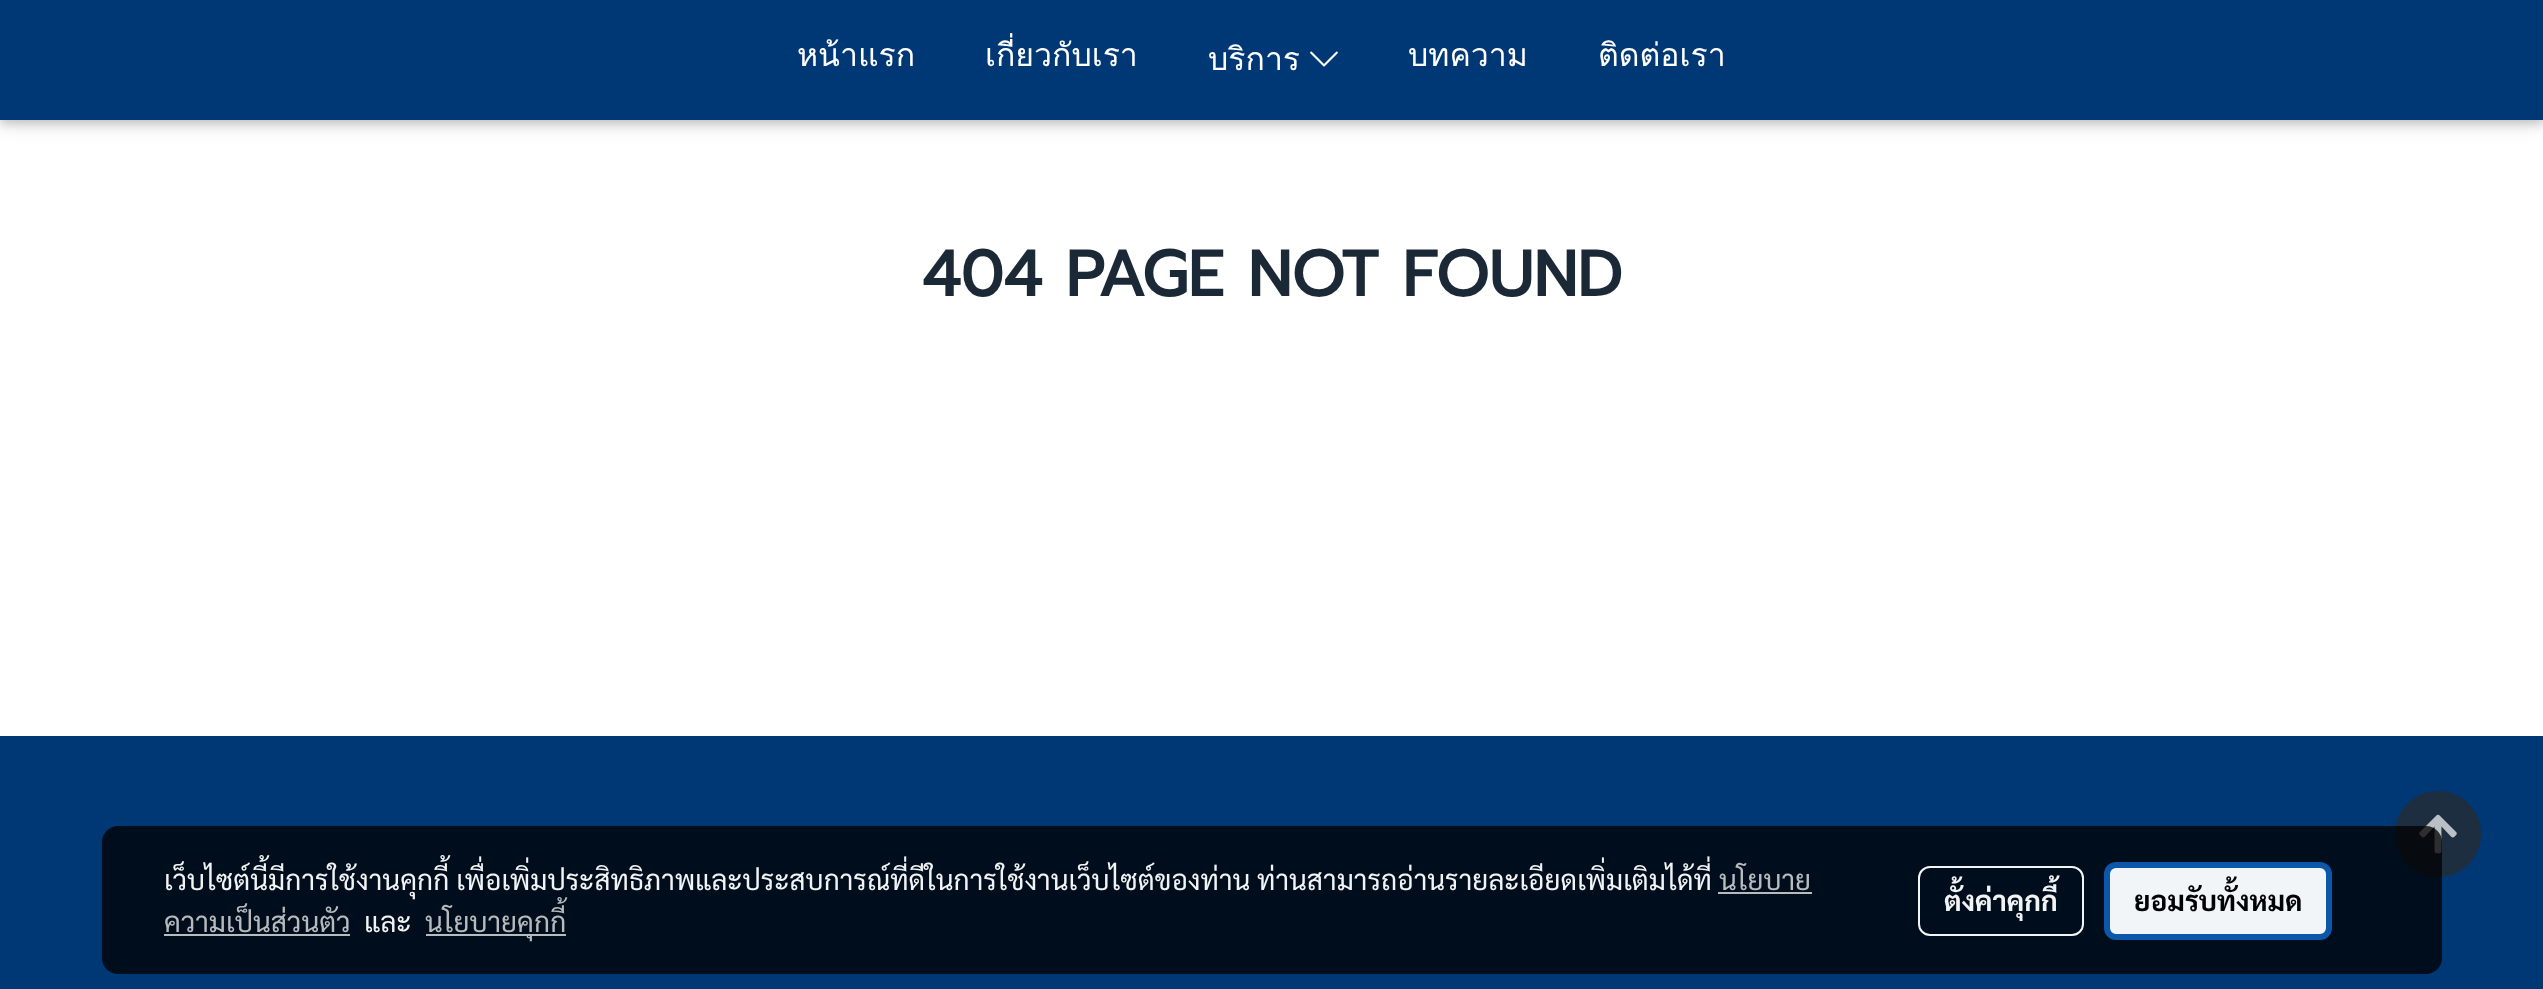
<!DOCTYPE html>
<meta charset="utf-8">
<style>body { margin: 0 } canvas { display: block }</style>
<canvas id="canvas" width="2543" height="989"></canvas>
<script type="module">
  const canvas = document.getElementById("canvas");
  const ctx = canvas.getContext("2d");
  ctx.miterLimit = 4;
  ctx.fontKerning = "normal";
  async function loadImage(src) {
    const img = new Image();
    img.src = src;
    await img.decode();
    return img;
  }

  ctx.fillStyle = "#ffffff";
  ctx.fillRect(0, 0, 2543, 989);
  ctx.fillStyle = "rgba(0, 0, 0, 0.12)";
  ctx.filter = "blur(10px)";
  ctx.beginPath();
  ctx.rect(0, 4, 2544, 120);
  ctx.fill();
  ctx.filter = "none";
  ctx.fillStyle = "rgba(0, 0, 0, 0.16)";
  ctx.filter = "blur(5px)";
  ctx.beginPath();
  ctx.rect(0, 4, 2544, 120);
  ctx.fill();
  ctx.filter = "none";
  ctx.fillStyle = "#003876";
  ctx.fillRect(0, 0, 2543, 120);
  ctx.font = "32px Loma";
  ctx.fillStyle = "#ffffff";
  ctx.fillText("หน้าแรก", 797, 66);
  ctx.fillText("เกี่ยวกับเรา", 985, 66);
  ctx.fillText("บริการ", 1208, 70);
  ctx.drawImage(await loadImage("img1.png"), 1310, 51, 28, 16);
  ctx.fillText("บทความ", 1408, 66);
  ctx.fillText("ติดต่อเรา", 1598, 66);
  ctx.font = "bold 64px Prompt";
  ctx.fillStyle = "#1b2836";
  ctx.fillText("404 PAGE NOT FOUND", 922, 296);
  ctx.fillStyle = "#003876";
  ctx.fillRect(0, 736, 2543, 253);
  ctx.fillStyle = "#1e2e41";
  ctx.beginPath();
  ctx.moveTo(2438, 791);
  ctx.bezierCurveTo(2414, 791, 2395, 810, 2395, 834);
  ctx.bezierCurveTo(2395, 858, 2414, 877, 2438, 877);
  ctx.bezierCurveTo(2462, 877, 2481, 858, 2481, 834);
  ctx.bezierCurveTo(2481, 810, 2462, 791, 2438, 791);
  ctx.closePath();
  ctx.fill();
  ctx.drawImage(await loadImage("img2.png"), 2419, 814, 38, 40);
  ctx.fillStyle = "rgba(0, 0, 0, 0.76)";
  ctx.beginPath();
  ctx.roundRect(102, 826, 2340, 148, 16);
  ctx.fill();
  ctx.font = "28px Sarabun";
  ctx.fillStyle = "#f2f3f4";
  ctx.fillText("เว็บไซต์นี้มีการใช้งานคุกกี้ เพื่อเพิ่มประสิทธิภาพและประสบการณ์ที่ดีในการใช้งานเว็บไซต์ของท่าน", 164, 890);
  ctx.fillText("ท่านสามารถอ่านรายละเอียดเพิ่มเติมได้ที่", 1257, 890);
  ctx.fillStyle = "#b8bbbe";
  ctx.fillText("นโยบาย", 1719, 890);
  ctx.fillRect(1718, 892, 94, 2);
  ctx.fillText("ความเป็นส่วนตัว", 164, 932);
  ctx.fillRect(164, 934, 186, 2);
  ctx.fillStyle = "#f2f3f4";
  ctx.fillText("และ", 364, 932);
  ctx.fillStyle = "#b8bbbe";
  ctx.fillRect(426, 934, 140, 2);
  ctx.fillText("นโยบายคุกกี้", 425, 932);
  ctx.beginPath();
  ctx.roundRect(1919, 867, 164, 68, 11);
  ctx.strokeStyle = "#f2f5f8";
  ctx.lineWidth = 2;
  ctx.stroke();
  ctx.font = "bold 28px Sarabun";
  ctx.fillStyle = "#f2f3f4";
  ctx.fillText("ตั้งค่าคุกกี้", 1944, 911);
  ctx.fillStyle = "#f2f5f8";
  ctx.beginPath();
  ctx.roundRect(2107, 865, 222, 72, 9);
  ctx.fill();
  ctx.strokeStyle = "#0c57aa";
  ctx.lineWidth = 6;
  ctx.stroke();
  ctx.fillStyle = "#000306";
  ctx.fillText("ยอมรับทั้งหมด", 2134, 911);
</script>
